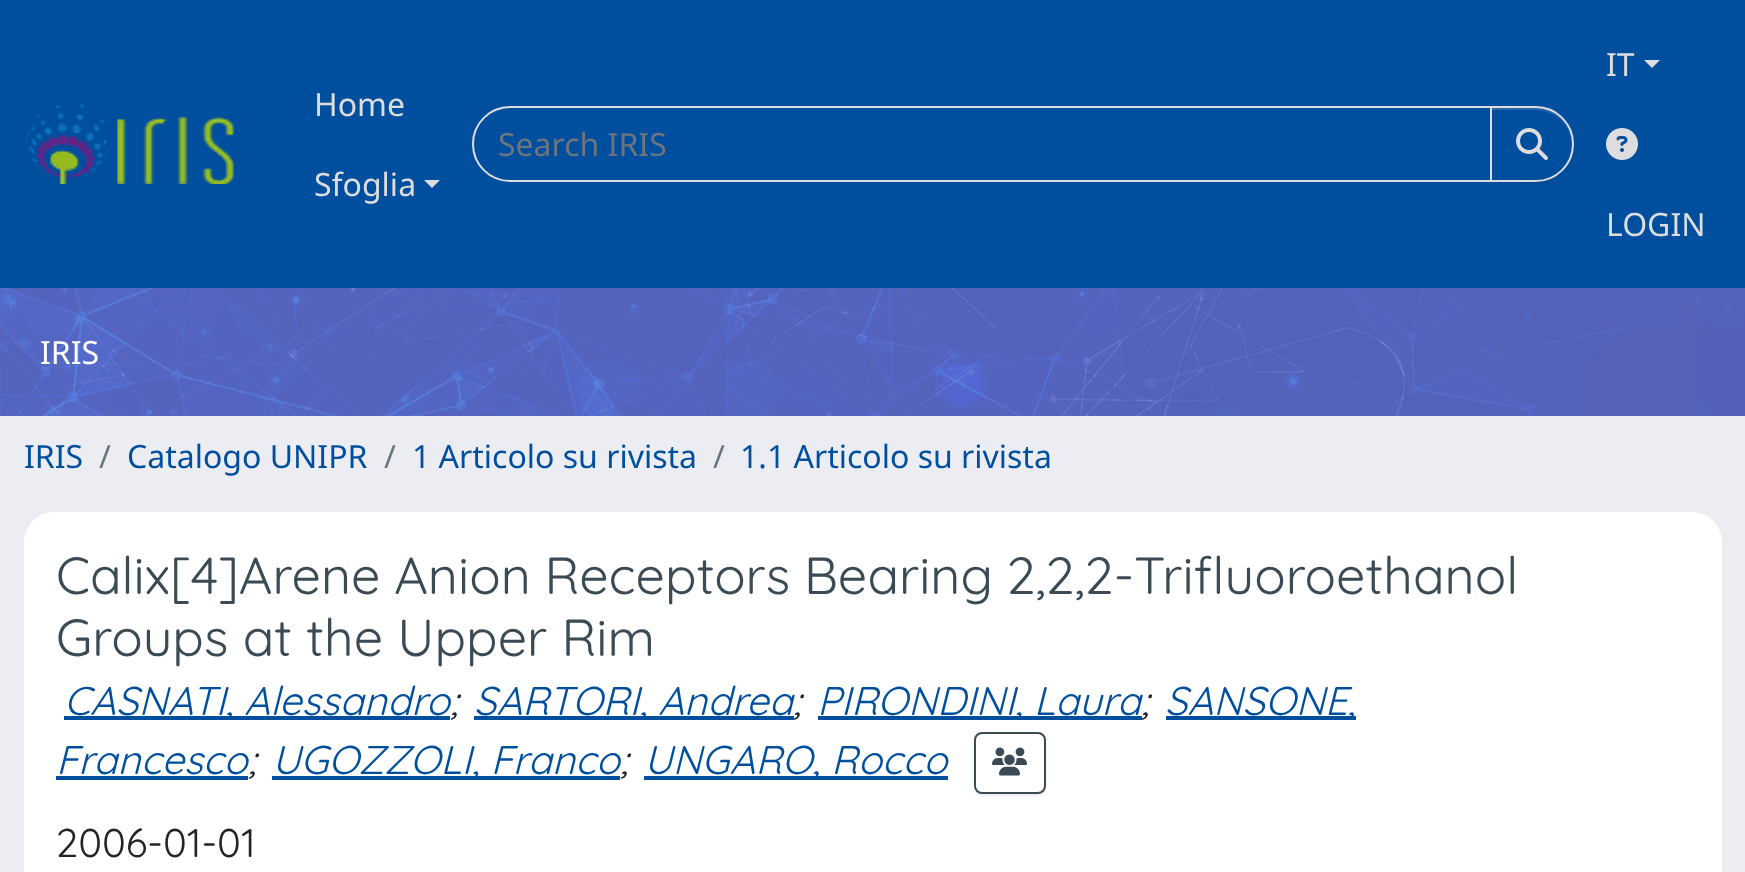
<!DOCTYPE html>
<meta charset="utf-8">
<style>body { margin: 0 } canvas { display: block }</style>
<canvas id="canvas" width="1745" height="872"></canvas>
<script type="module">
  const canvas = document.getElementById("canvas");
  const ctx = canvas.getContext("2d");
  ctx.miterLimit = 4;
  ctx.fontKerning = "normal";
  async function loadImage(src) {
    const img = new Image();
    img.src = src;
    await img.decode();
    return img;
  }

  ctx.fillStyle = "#ecedf2";
  ctx.fillRect(0, 0, 1745, 872);
  ctx.fillStyle = "#004f9f";
  ctx.fillRect(0, 0, 1745, 288);
  ctx.drawImage(await loadImage("img1.png"), 26, 104, 208, 80);
  ctx.font = "32px Noto Sans";
  ctx.fillStyle = "#dddddd";
  ctx.fillText("Home", 314, 116);
  ctx.fillText("Sfoglia", 314, 196);
  ctx.beginPath();
  ctx.moveTo(424, 180);
  ctx.lineTo(440, 180);
  ctx.lineTo(432, 188);
  ctx.closePath();
  ctx.fill();
  ctx.beginPath();
  ctx.roundRect(473, 107, 1018, 74, [37, 0, 0, 37]);
  ctx.strokeStyle = "#dddddd";
  ctx.lineWidth = 2;
  ctx.stroke();
  ctx.fillStyle = "#6c757d";
  ctx.fillText("Search IRIS", 498, 156);
  ctx.fillStyle = "rgba(0, 0, 0, 0.07)";
  ctx.filter = "blur(1px)";
  ctx.beginPath();
  ctx.roundRect(1490, 108, 84, 76, 38);
  ctx.fill();
  ctx.filter = "none";
  ctx.fillStyle = "#004f9f";
  ctx.beginPath();
  ctx.roundRect(1490, 106, 84, 76, [0, 38, 38, 0]);
  ctx.fill();
  ctx.fillStyle = "#2669ad";
  ctx.beginPath();
  ctx.moveTo(1492, 110);
  ctx.lineTo(1536, 110);
  ctx.bezierCurveTo(1556, 110, 1571, 125, 1572, 145);
  ctx.lineTo(1572, 144);
  ctx.bezierCurveTo(1572, 124, 1556, 108, 1536, 108);
  ctx.lineTo(1492, 108);
  ctx.closePath();
  ctx.fill();
  ctx.beginPath();
  ctx.roundRect(1491, 107, 82, 74, [0, 37, 37, 0]);
  ctx.stroke();
  ctx.drawImage(await loadImage("img2.png"), 1516, 128, 32, 32);
  ctx.fillStyle = "#dddddd";
  ctx.fillText("IT", 1606, 76);
  ctx.beginPath();
  ctx.moveTo(1644, 60);
  ctx.lineTo(1660, 60);
  ctx.lineTo(1652, 68);
  ctx.closePath();
  ctx.fill();
  ctx.drawImage(await loadImage("img3.png"), 1606, 128, 32, 32);
  ctx.fillText("LOGIN", 1606, 236);
  ctx.drawImage(await loadImage("img4.png"), 0, 288, 1745, 128);
  ctx.fillStyle = "#ffffff";
  ctx.fillText("IRIS", 40, 364);
  ctx.fillStyle = "#004f9f";
  ctx.fillText("IRIS", 24, 468);
  ctx.fillStyle = "#6c757d";
  ctx.fillText("/", 99, 468);
  ctx.fillStyle = "#004f9f";
  ctx.fillText("Catalogo UNIPR", 127, 468);
  ctx.fillStyle = "#6c757d";
  ctx.fillText("/", 384, 468);
  ctx.fillStyle = "#004f9f";
  ctx.fillText("1 Articolo su rivista", 412, 468);
  ctx.fillStyle = "#6c757d";
  ctx.fillText("/", 713, 468);
  ctx.fillStyle = "#004f9f";
  ctx.fillText("1.1 Articolo su rivista", 740, 468);
  ctx.fillStyle = "#ffffff";
  ctx.beginPath();
  ctx.roundRect(24, 512, 1698, 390, 30);
  ctx.fill();
  ctx.wordSpacing = "-0.5px";
  ctx.font = "52.1px Quicksand";
  ctx.fillStyle = "#3a4b55";
  ctx.fillText("Calix[4]Arene Anion Receptors Bearing 2,2,2-Trifluoroethanol", 56, 594);
  ctx.wordSpacing = "0px";
  ctx.fillText("Groups at the Upper Rim", 56, 656);
  ctx.fillStyle = "#004f9f";
  ctx.fillRect(64, 716, 386, 4);
  ctx.font = "italic 40px Quicksand";
  ctx.fillText("CASNATI, Alessandro", 64, 715);
  ctx.fillStyle = "#212529";
  ctx.fillText(";", 450, 715);
  ctx.fillStyle = "#004f9f";
  ctx.fillRect(474, 716, 320, 4);
  ctx.fillText("SARTORI, Andrea", 474, 715);
  ctx.fillStyle = "#212529";
  ctx.fillText(";", 793, 715);
  ctx.fillStyle = "#004f9f";
  ctx.fillRect(818, 716, 324, 4);
  ctx.fillText("PIRONDINI, Laura", 817, 715);
  ctx.fillStyle = "#212529";
  ctx.fillText(";", 1141, 715);
  ctx.fillStyle = "#004f9f";
  ctx.fillRect(1166, 716, 190, 4);
  ctx.fillText("SANSONE,", 1165, 715);
  ctx.fillText("Francesco", 56, 774);
  ctx.fillStyle = "#212529";
  ctx.fillText(";", 248, 774);
  ctx.fillStyle = "#004f9f";
  ctx.fillRect(56, 776, 192, 4);
  ctx.fillRect(272, 776, 348, 4);
  ctx.fillText("UGOZZOLI, Franco", 272, 774);
  ctx.fillStyle = "#212529";
  ctx.fillText(";", 620, 774);
  ctx.fillStyle = "#004f9f";
  ctx.fillRect(644, 776, 304, 4);
  ctx.fillText("UNGARO, Rocco", 644, 774);
  ctx.save();
  ctx.beginPath();
  ctx.moveTo(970, 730);
  ctx.lineTo(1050, 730);
  ctx.lineTo(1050, 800);
  ctx.lineTo(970, 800);
  ctx.closePath();
  ctx.moveTo(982, 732);
  ctx.lineTo(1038, 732);
  ctx.bezierCurveTo(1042.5, 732, 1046, 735.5, 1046, 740);
  ctx.lineTo(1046, 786);
  ctx.bezierCurveTo(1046, 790.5, 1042.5, 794, 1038, 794);
  ctx.lineTo(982, 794);
  ctx.bezierCurveTo(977.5, 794, 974, 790.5, 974, 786);
  ctx.lineTo(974, 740);
  ctx.bezierCurveTo(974, 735.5, 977.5, 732, 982, 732);
  ctx.closePath();
  ctx.clip("evenodd");
  ctx.fillStyle = "rgba(0, 0, 0, 0.07)";
  ctx.filter = "blur(1px)";
  ctx.beginPath();
  ctx.roundRect(974, 734, 72, 62, 8);
  ctx.fill();
  ctx.filter = "none";
  ctx.restore();
  ctx.beginPath();
  ctx.roundRect(975, 733, 70, 60, 7);
  ctx.strokeStyle = "#3a4b55";
  ctx.stroke();
  ctx.drawImage(await loadImage("img5.png"), 992, 747, 35, 29);
  ctx.font = "40px Quicksand";
  ctx.fillStyle = "#212529";
  ctx.fillText("2006-01-01", 56, 857);
</script>
